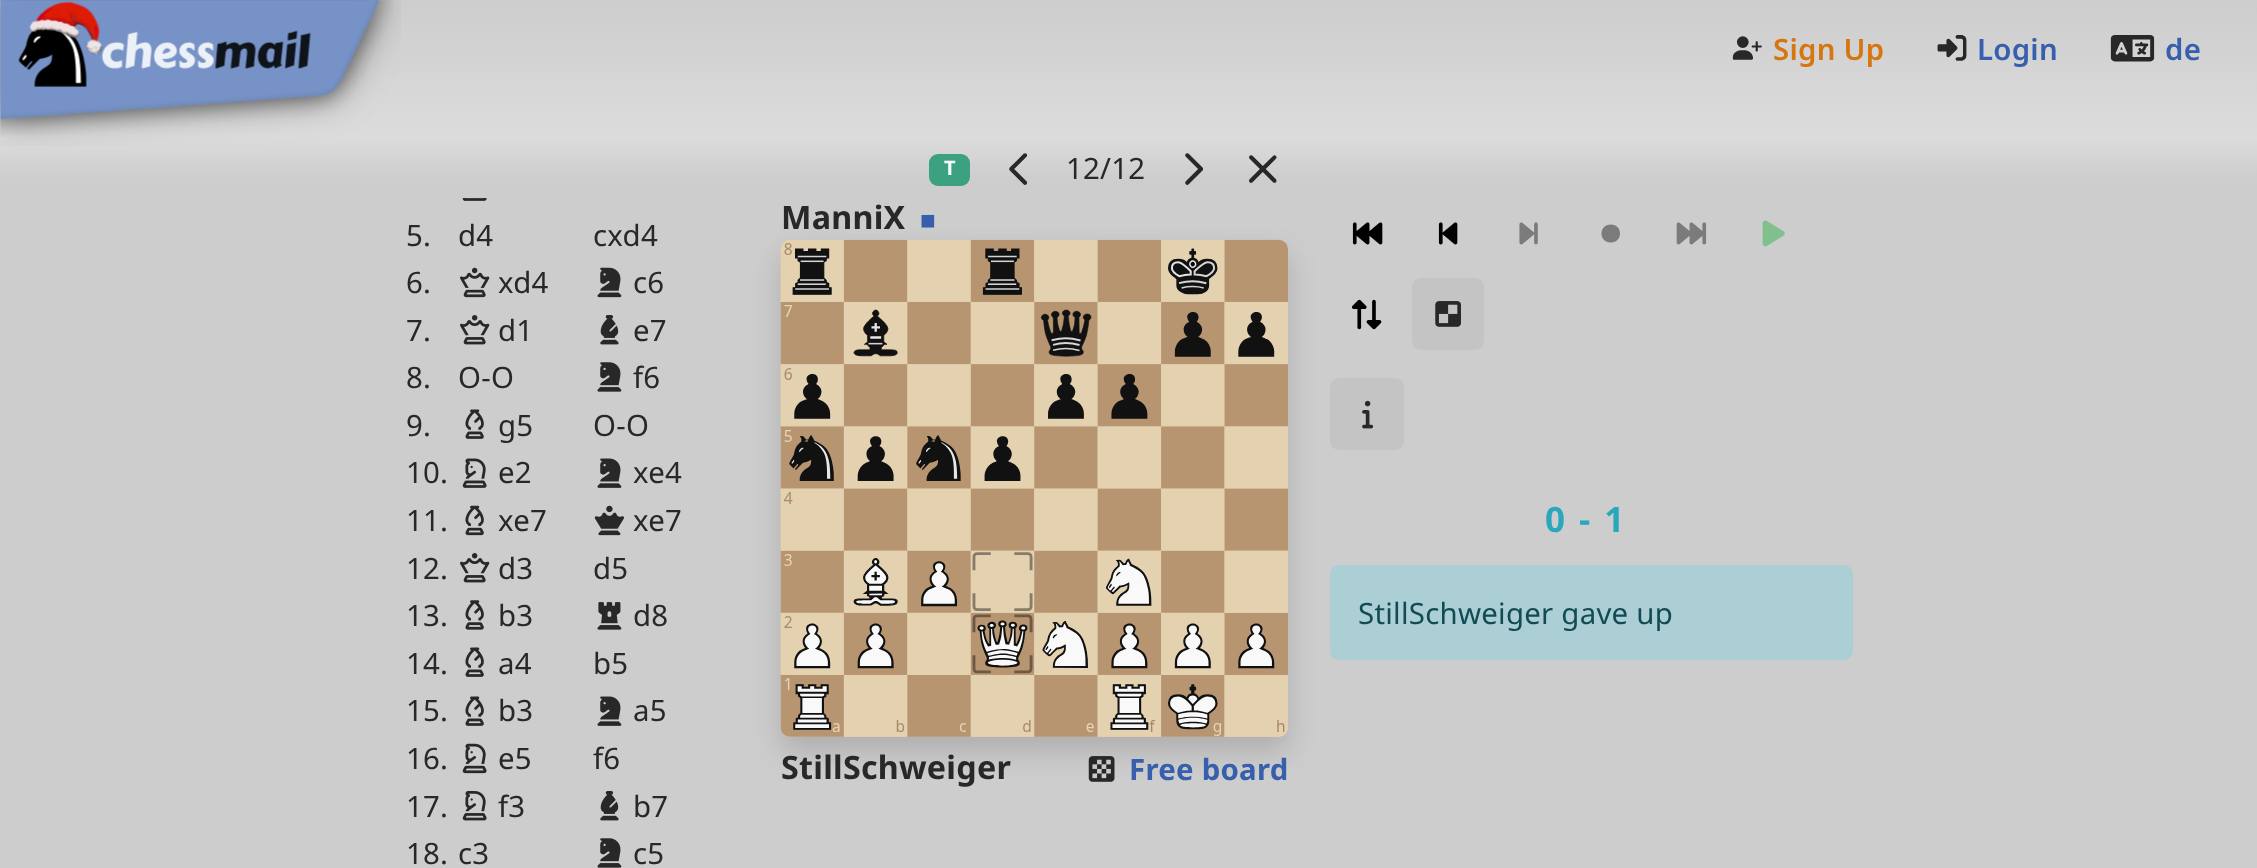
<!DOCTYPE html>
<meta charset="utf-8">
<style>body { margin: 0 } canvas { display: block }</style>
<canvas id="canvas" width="2257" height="868"></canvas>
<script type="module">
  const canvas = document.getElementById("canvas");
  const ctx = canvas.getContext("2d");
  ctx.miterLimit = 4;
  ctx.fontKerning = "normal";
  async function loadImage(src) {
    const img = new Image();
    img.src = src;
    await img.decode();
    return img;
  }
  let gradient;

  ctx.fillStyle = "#ffffff";
  ctx.fillRect(0, 0, 2257, 868);
  gradient = ctx.createLinearGradient(1129, 0, 1129, 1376);
  gradient.addColorStop(0, "#cdcdcd");
  gradient.addColorStop(0.1, "#dcdcdc");
  gradient.addColorStop(0.13, "#cdcdcd");
  ctx.fillStyle = gradient;
  ctx.fillRect(0, 0, 2257, 868);
  ctx.drawImage(await loadImage("img1.png"), 0, 0, 401, 146);
  ctx.drawImage(await loadImage("img2.png"), 1732, 36, 30, 24);
  ctx.letterSpacing = "0.25px";
  ctx.font = "600 29.4px Noto Sans";
  ctx.fillStyle = "#d67611";
  ctx.fillText("Sign Up", 1773, 60);
  ctx.drawImage(await loadImage("img3.png"), 1937, 35, 30, 26);
  ctx.fillStyle = "#375fae";
  ctx.fillText("Login", 1977, 60);
  ctx.drawImage(await loadImage("img4.png"), 2110, 35, 45, 27);
  ctx.fillText("de", 2165, 60);
  ctx.drawImage(await loadImage("img5.png"), 462, 198, 25, 3);
  ctx.font = "29.4px Noto Sans";
  ctx.fillStyle = "#282828";
  ctx.fillText("5.", 406, 246);
  ctx.fillText("d4", 458, 246);
  ctx.fillText("cxd4", 593, 246);
  ctx.fillText("6.", 406, 293);
  ctx.drawImage(await loadImage("img6.png"), 460, 267, 30, 31);
  ctx.fillText("xd4", 498, 293);
  ctx.drawImage(await loadImage("img7.png"), 597, 267, 25, 31);
  ctx.fillText("c6", 633, 293);
  ctx.fillText("7.", 406, 341);
  ctx.drawImage(await loadImage("img8.png"), 460, 315, 30, 30);
  ctx.fillText("d1", 498, 341);
  ctx.drawImage(await loadImage("img9.png"), 600, 315, 19, 30);
  ctx.fillText("e7", 633, 341);
  ctx.fillText("8.", 406, 388);
  ctx.fillText("O-O", 458, 388);
  ctx.drawImage(await loadImage("img10.png"), 597, 362, 25, 30);
  ctx.fillText("f6", 633, 388);
  ctx.fillText("9.", 406, 436);
  ctx.drawImage(await loadImage("img11.png"), 465, 409, 19, 30);
  ctx.fillText("g5", 498, 436);
  ctx.fillText("O-O", 593, 436);
  ctx.fillText("10.", 406, 483);
  ctx.drawImage(await loadImage("img12.png"), 462, 458, 25, 30);
  ctx.fillText("e2", 498, 483);
  ctx.drawImage(await loadImage("img13.png"), 597, 458, 25, 30);
  ctx.fillText("xe4", 633, 483);
  ctx.fillText("11.", 406, 531);
  ctx.drawImage(await loadImage("img14.png"), 465, 505, 19, 31);
  ctx.fillText("xe7", 498, 531);
  ctx.drawImage(await loadImage("img15.png"), 594, 505, 30, 31);
  ctx.fillText("xe7", 633, 531);
  ctx.fillText("12.", 406, 579);
  ctx.drawImage(await loadImage("img8.png"), 460, 553, 30, 30);
  ctx.fillText("d3", 498, 579);
  ctx.fillText("d5", 593, 579);
  ctx.fillText("13.", 406, 626);
  ctx.drawImage(await loadImage("img16.png"), 465, 600, 19, 30);
  ctx.fillText("b3", 498, 626);
  ctx.drawImage(await loadImage("img17.png"), 597, 602, 25, 28);
  ctx.fillText("d8", 633, 626);
  ctx.fillText("14.", 406, 674);
  ctx.drawImage(await loadImage("img11.png"), 465, 647, 19, 30);
  ctx.fillText("a4", 498, 674);
  ctx.fillText("b5", 593, 674);
  ctx.fillText("15.", 406, 721);
  ctx.drawImage(await loadImage("img11.png"), 465, 696, 19, 30);
  ctx.fillText("b3", 498, 721);
  ctx.drawImage(await loadImage("img13.png"), 597, 696, 25, 30);
  ctx.fillText("a5", 633, 721);
  ctx.fillText("16.", 406, 769);
  ctx.drawImage(await loadImage("img18.png"), 462, 743, 25, 31);
  ctx.fillText("e5", 498, 769);
  ctx.fillText("f6", 593, 769);
  ctx.fillText("17.", 406, 817);
  ctx.drawImage(await loadImage("img19.png"), 462, 791, 25, 30);
  ctx.fillText("f3", 498, 817);
  ctx.drawImage(await loadImage("img9.png"), 600, 791, 19, 30);
  ctx.fillText("b7", 633, 817);
  ctx.fillText("18.", 406, 864);
  ctx.fillText("c3", 458, 864);
  ctx.drawImage(await loadImage("img10.png"), 597, 838, 25, 30);
  ctx.fillText("c5", 633, 864);
  ctx.fillStyle = "#3ba181";
  ctx.beginPath();
  ctx.roundRect(929, 154, 41, 32, 9);
  ctx.fill();
  ctx.letterSpacing = "0px";
  ctx.font = "bold 20px Noto Sans";
  ctx.fillStyle = "#f9f9f9";
  ctx.fillText("T", 944, 175);
  ctx.drawImage(await loadImage("img20.png"), 1009, 153, 19, 32);
  ctx.letterSpacing = "0.25px";
  ctx.font = "29.4px Noto Sans";
  ctx.fillStyle = "#282828";
  ctx.fillText("12/12", 1066, 179);
  ctx.drawImage(await loadImage("img21.png"), 1185, 153, 18, 32);
  ctx.drawImage(await loadImage("img22.png"), 1249, 155, 28, 28);
  ctx.fillStyle = "rgba(0, 0, 0, 0.15)";
  ctx.filter = "blur(14px)";
  ctx.beginPath();
  ctx.roundRect(781, 254, 507, 497, 9);
  ctx.fill();
  ctx.filter = "none";
  ctx.font = "bold 32.25px Noto Sans";
  ctx.fillStyle = "#282828";
  ctx.fillText("ManniX", 781, 229);
  ctx.font = "bold 26px Liberation Sans";
  ctx.fillStyle = "#375fae";
  ctx.fillText("■", 920, 229);
  ctx.drawImage(await loadImage("img23.png"), 780, 239, 508, 498);
  ctx.font = "bold 32.25px Noto Sans";
  ctx.fillStyle = "#282828";
  ctx.fillText("StillSchweiger", 781, 779);
  ctx.drawImage(await loadImage("img24.png"), 1088, 756, 27, 26);
  ctx.font = "bold 29.4px Noto Sans";
  ctx.fillStyle = "#375fae";
  ctx.fillText("Free board", 1129, 780);
  ctx.drawImage(await loadImage("img25.png"), 1352, 222, 31, 23);
  ctx.drawImage(await loadImage("img26.png"), 1438, 222, 20, 23);
  ctx.drawImage(await loadImage("img27.png"), 1519, 222, 19, 23);
  ctx.fillStyle = "#7b7b7b";
  ctx.beginPath();
  ctx.moveTo(1601.5, 233.5);
  ctx.bezierCurveTo(1601.5, 221.5, 1620, 221.5, 1620, 233.5);
  ctx.bezierCurveTo(1620, 245.5, 1601.5, 245.5, 1601.5, 233.5);
  ctx.closePath();
  ctx.fill();
  ctx.drawImage(await loadImage("img28.png"), 1676, 222, 31, 23);
  ctx.drawImage(await loadImage("img29.png"), 1762, 220, 23, 27);
  ctx.drawImage(await loadImage("img30.png"), 1351, 299, 31, 31);
  ctx.fillStyle = "#c4c4c4";
  ctx.beginPath();
  ctx.roundRect(1412, 278, 72, 72, 9);
  ctx.fill();
  ctx.drawImage(await loadImage("img31.png"), 1435, 301, 26, 26);
  ctx.beginPath();
  ctx.roundRect(1330, 378, 74, 72, 9);
  ctx.fill();
  ctx.drawImage(await loadImage("img32.png"), 1362, 400, 12, 29);
  ctx.letterSpacing = "14px";
  ctx.font = "bold 35px Noto Sans";
  ctx.fillStyle = "#2aa7bd";
  ctx.fillText("0-1", 1545, 532);
  ctx.fillStyle = "#abcfd5";
  ctx.beginPath();
  ctx.roundRect(1330, 565, 523, 95, 9);
  ctx.fill();
  ctx.letterSpacing = "0.25px";
  ctx.font = "29.4px Noto Sans";
  ctx.fillStyle = "#134b55";
  ctx.fillText("StillSchweiger gave up", 1358, 624);
</script>
